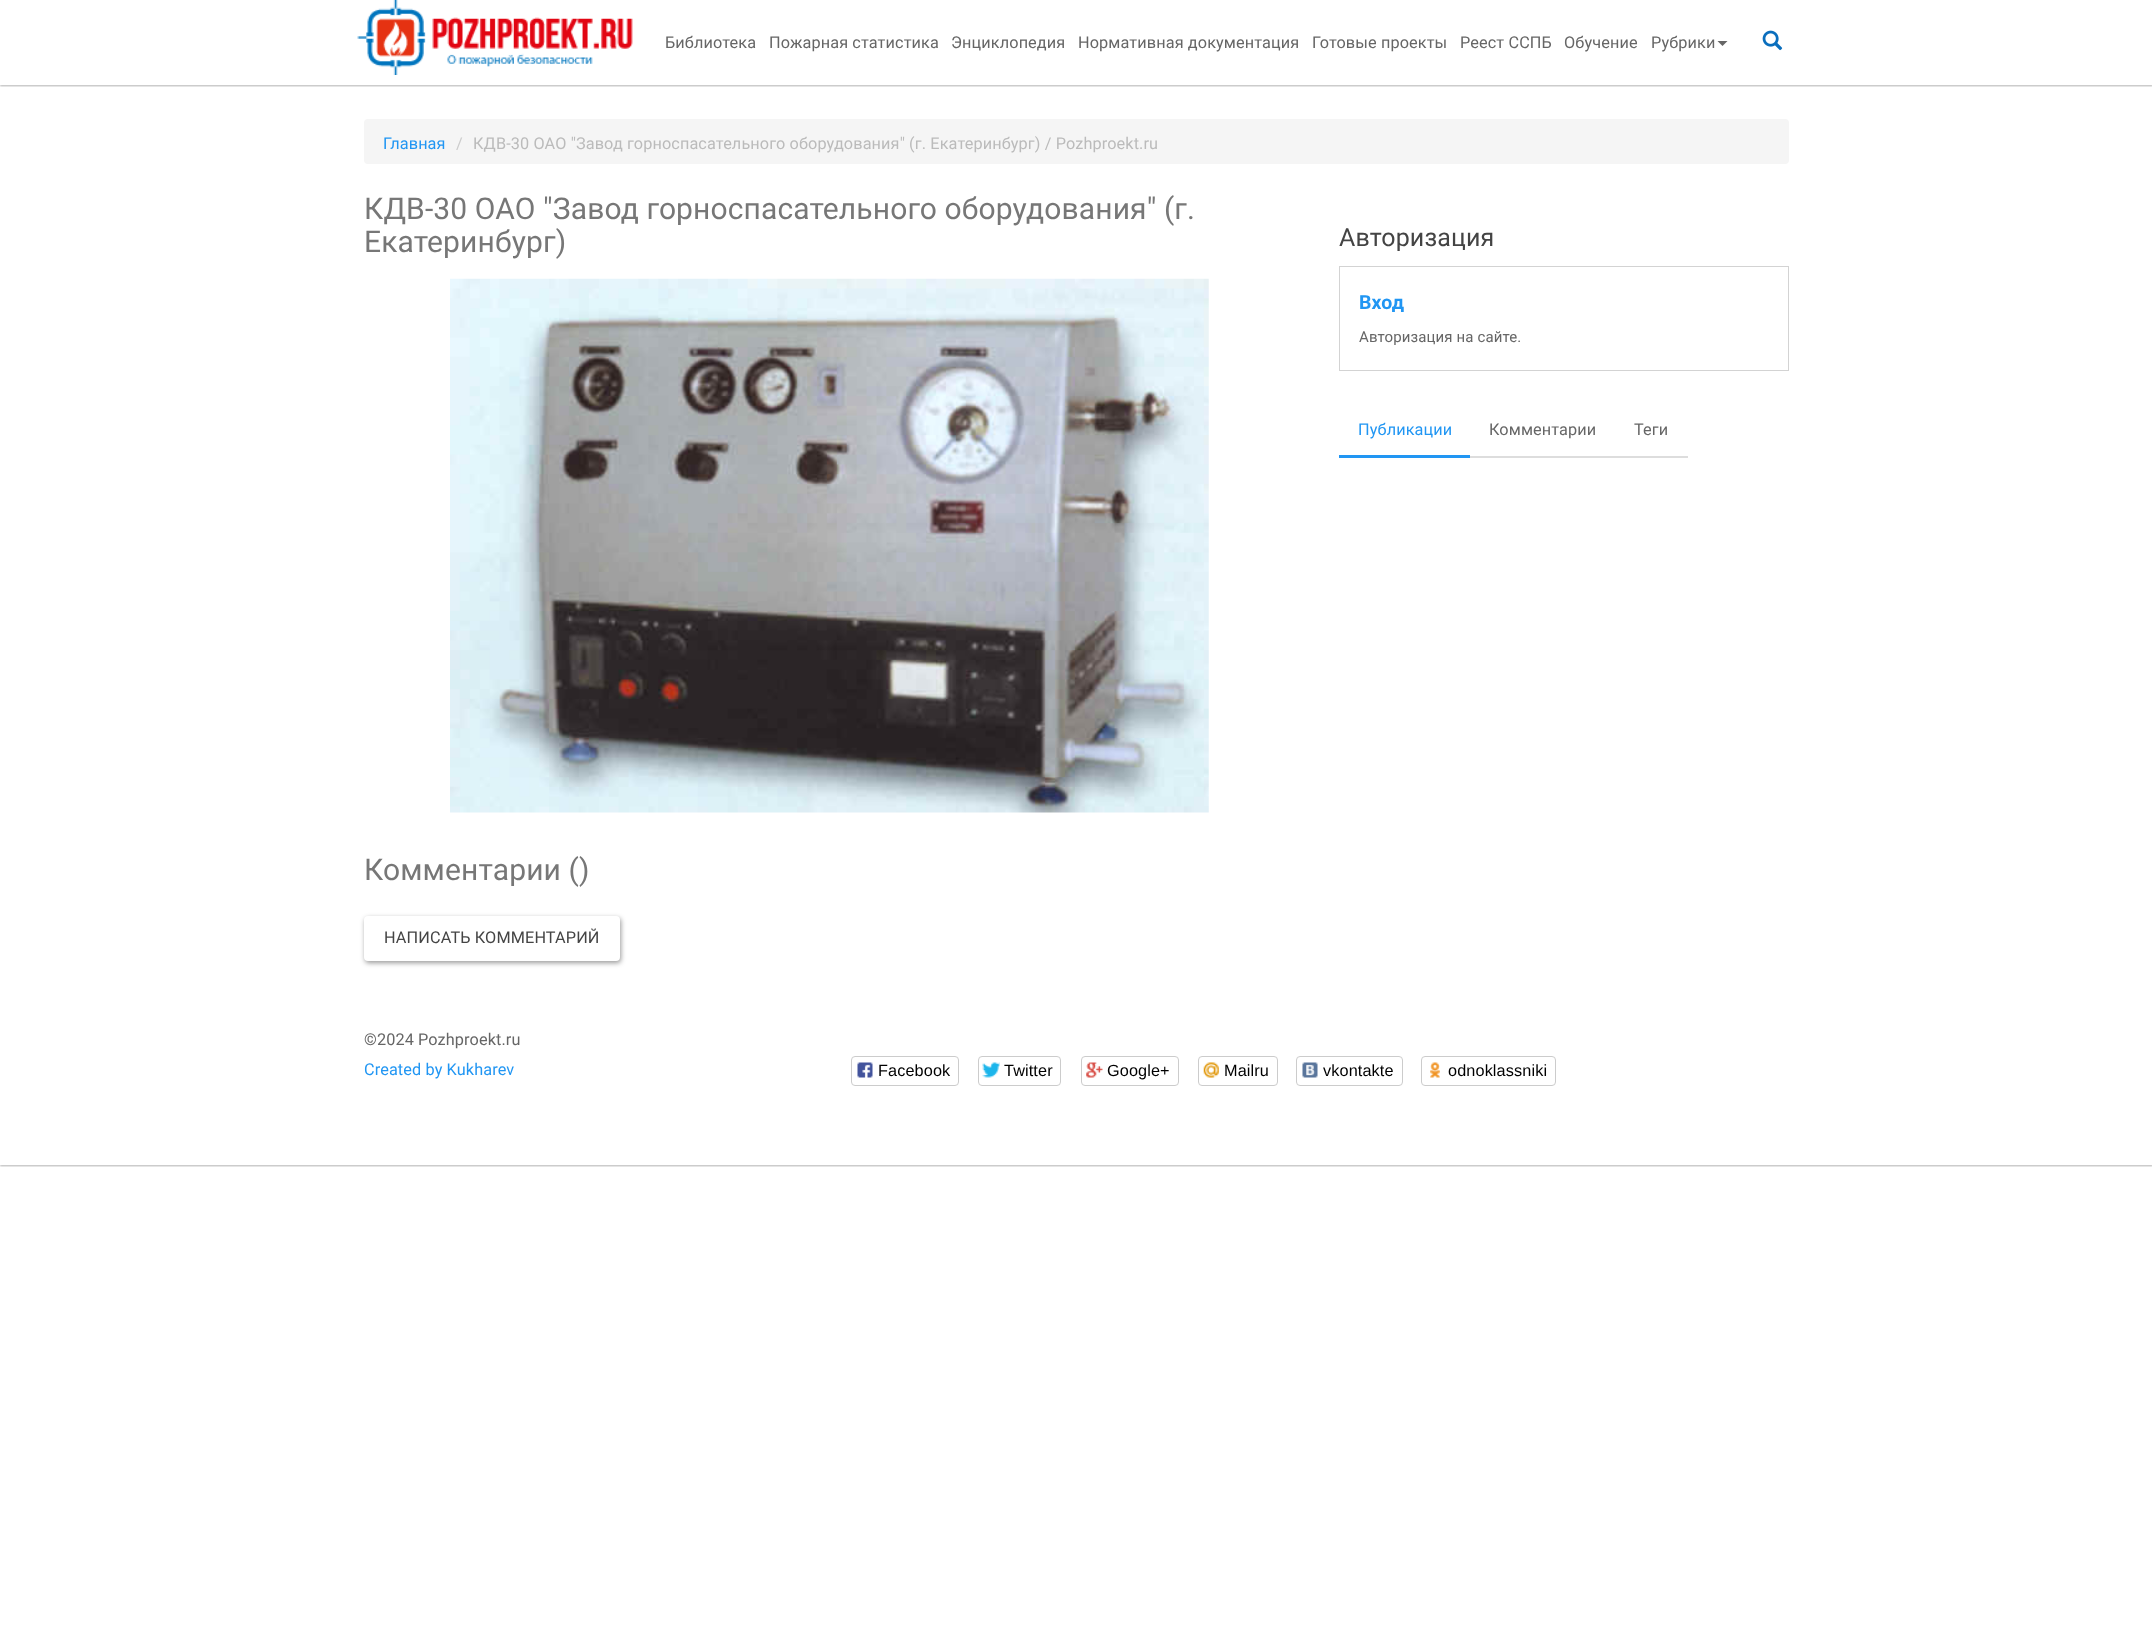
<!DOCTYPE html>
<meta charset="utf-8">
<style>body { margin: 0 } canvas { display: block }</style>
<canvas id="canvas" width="2152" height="1629"></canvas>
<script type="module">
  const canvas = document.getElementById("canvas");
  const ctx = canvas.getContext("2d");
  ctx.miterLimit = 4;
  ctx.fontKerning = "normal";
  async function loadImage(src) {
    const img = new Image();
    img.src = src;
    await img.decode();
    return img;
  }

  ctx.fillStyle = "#ffffff";
  ctx.fillRect(0, 0, 2152, 1629);
  ctx.save();
  ctx.beginPath();
  ctx.rect(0, 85, 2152, 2);
  ctx.clip();
  ctx.fillStyle = "rgba(0, 0, 0, 0.3)";
  ctx.filter = "blur(1px)";
  ctx.beginPath();
  ctx.rect(0, 1, 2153, 85);
  ctx.fill();
  ctx.filter = "none";
  ctx.restore();
  ctx.drawImage(await loadImage("img1.png"), 357, 0, 276, 75);
  ctx.letterSpacing = "0.12px";
  ctx.font = "16.25px Roboto";
  ctx.fillStyle = "#666666";
  ctx.fillText("Библиотека", 665, 48);
  ctx.fillText("Пожарная статистика", 769, 48);
  ctx.fillText("Энциклопедия", 951, 48);
  ctx.fillText("Нормативная документация", 1078, 48);
  ctx.fillText("Готовые проекты", 1312, 48);
  ctx.fillText("Реест ССПБ", 1460, 48);
  ctx.fillText("Обучение", 1564, 48);
  ctx.fillText("Рубрики", 1651, 48);
  ctx.beginPath();
  ctx.moveTo(1717.5, 41);
  ctx.lineTo(1727.5, 41);
  ctx.lineTo(1722.5, 46);
  ctx.closePath();
  ctx.fill();
  ctx.drawImage(await loadImage("img2.png"), 1762, 30, 21, 21);
  ctx.fillStyle = "#f5f5f5";
  ctx.beginPath();
  ctx.roundRect(364, 119, 1425, 45, 4);
  ctx.fill();
  ctx.fillStyle = "#2196f3";
  ctx.fillText("Главная", 383, 149);
  ctx.fillStyle = "#cccccc";
  ctx.fillText("/", 456, 149);
  ctx.fillStyle = "#bbbbbb";
  ctx.fillText("КДВ-30 ОАО \"Завод горноспасательного оборудования\" (г. Екатеринбург) / Pozhproekt.ru", 473, 149);
  ctx.font = "30px Roboto";
  ctx.fillStyle = "#777777";
  ctx.fillText("КДВ-30 ОАО \"Завод горноспасательного оборудования\" (г.", 364, 219);
  ctx.fillText("Екатеринбург)", 364, 252);
  ctx.drawImage(await loadImage("img3.png"), 450, 278, 759, 535);
  ctx.fillText("Комментарии ()", 364, 880);
  ctx.fillStyle = "rgba(0, 0, 0, 0.4)";
  ctx.filter = "blur(2.5px)";
  ctx.beginPath();
  ctx.roundRect(365, 918, 256, 45, 4);
  ctx.fill();
  ctx.filter = "none";
  ctx.fillStyle = "#ffffff";
  ctx.beginPath();
  ctx.roundRect(364, 916, 256, 45, 4);
  ctx.fill();
  ctx.font = "16.25px Roboto";
  ctx.fillStyle = "#444444";
  ctx.fillText("НАПИСАТЬ КОММЕНТАРИЙ", 384, 943);
  ctx.font = "25px Roboto";
  ctx.fillText("Авторизация", 1339, 246);
  ctx.strokeStyle = "#d3d3d3";
  ctx.strokeRect(1339.5, 266.5, 449, 104);
  ctx.font = "bold 19.5px Roboto";
  ctx.fillStyle = "#2196f3";
  ctx.fillText("Вход", 1359, 309);
  ctx.font = "15px Roboto";
  ctx.fillStyle = "#666666";
  ctx.fillText("Авторизация на сайте.", 1359, 342);
  ctx.fillStyle = "#2196f3";
  ctx.fillRect(1339, 455, 131, 3);
  ctx.font = "16.25px Roboto";
  ctx.fillText("Публикации", 1358, 435);
  ctx.fillStyle = "#dddddd";
  ctx.fillRect(1470, 456, 218, 2);
  ctx.fillStyle = "#666666";
  ctx.fillText("Комментарии", 1489, 435);
  ctx.fillText("Теги", 1634, 435);
  ctx.save();
  ctx.beginPath();
  ctx.rect(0, 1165, 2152, 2);
  ctx.clip();
  ctx.fillStyle = "rgba(0, 0, 0, 0.3)";
  ctx.filter = "blur(1px)";
  ctx.beginPath();
  ctx.rect(0, 1001, 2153, 165);
  ctx.fill();
  ctx.filter = "none";
  ctx.restore();
  ctx.fillText("©2024 Pozhproekt.ru", 364, 1045);
  ctx.fillStyle = "#2196f3";
  ctx.fillText("Created by Kukharev", 364, 1075);
  ctx.beginPath();
  ctx.roundRect(851.5, 1056.5, 107, 29, 3.5);
  ctx.strokeStyle = "#cccccc";
  ctx.stroke();
  ctx.drawImage(await loadImage("img4.png"), 857, 1062, 16, 16);
  ctx.font = "16.25px Liberation Sans";
  ctx.fillStyle = "#000000";
  ctx.fillText("Facebook", 878, 1076);
  ctx.beginPath();
  ctx.roundRect(978.5, 1056.5, 82, 29, 3.5);
  ctx.stroke();
  ctx.drawImage(await loadImage("img5.png"), 982, 1062, 18, 16);
  ctx.fillText("Twitter", 1004, 1076);
  ctx.beginPath();
  ctx.roundRect(1081.5, 1056.5, 97, 29, 3.5);
  ctx.stroke();
  ctx.drawImage(await loadImage("img6.png"), 1086, 1062, 17, 16);
  ctx.fillText("Google+", 1107, 1076);
  ctx.beginPath();
  ctx.roundRect(1198.5, 1056.5, 79, 29, 3.5);
  ctx.stroke();
  ctx.drawImage(await loadImage("img7.png"), 1203, 1062, 16, 16);
  ctx.fillText("Mailru", 1224, 1076);
  ctx.beginPath();
  ctx.roundRect(1296.5, 1056.5, 106, 29, 3.5);
  ctx.stroke();
  ctx.drawImage(await loadImage("img8.png"), 1302, 1062, 16, 16);
  ctx.fillText("vkontakte", 1323, 1076);
  ctx.beginPath();
  ctx.roundRect(1421.5, 1056.5, 134, 29, 3.5);
  ctx.stroke();
  ctx.drawImage(await loadImage("img9.png"), 1430, 1062, 10, 16);
  ctx.fillText("odnoklassniki", 1448, 1076);
</script>
